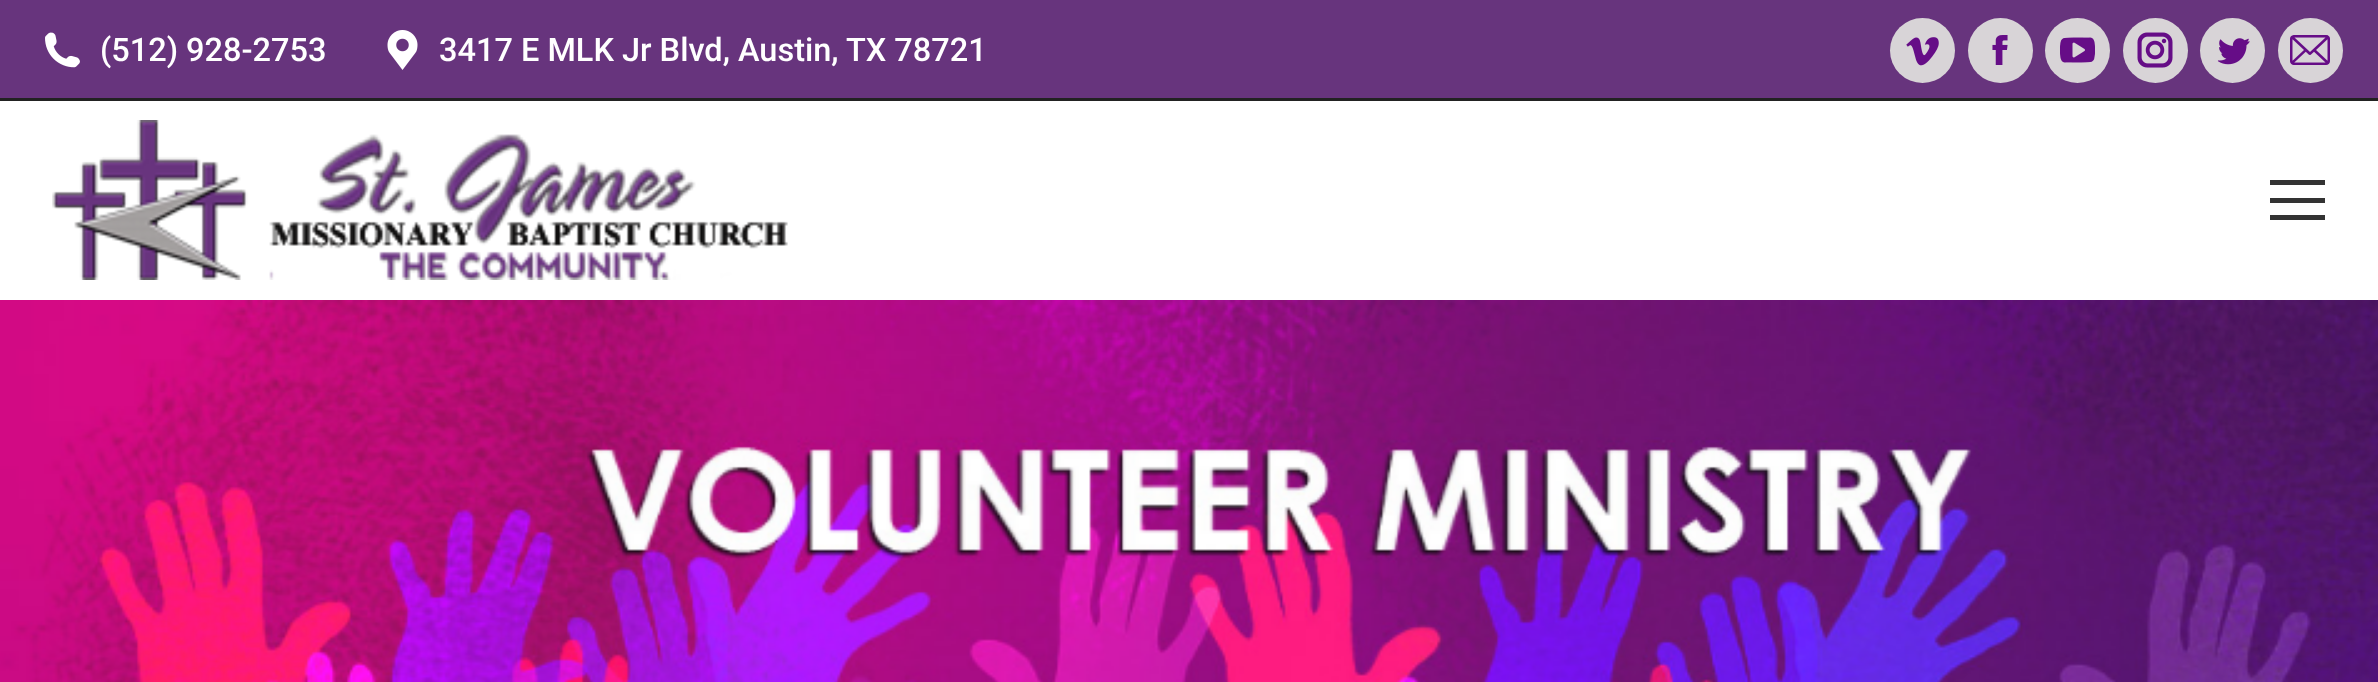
<!DOCTYPE html>
<meta charset="utf-8">
<style>body { margin: 0 } canvas { display: block }</style>
<canvas id="canvas" width="2378" height="682"></canvas>
<script type="module">
  const canvas = document.getElementById("canvas");
  const ctx = canvas.getContext("2d");
  ctx.miterLimit = 4;
  ctx.fontKerning = "normal";
  async function loadImage(src) {
    const img = new Image();
    img.src = src;
    await img.decode();
    return img;
  }

  ctx.fillStyle = "#ffffff";
  ctx.fillRect(0, 0, 2378, 682);
  ctx.fillStyle = "#67347d";
  ctx.fillRect(0, 0, 2378, 98);
  ctx.drawImage(await loadImage("img1.png"), 45, 32, 35, 36);
  ctx.font = "500 32.5px Roboto";
  ctx.fillStyle = "#ffffff";
  ctx.fillText("(512) 928-2753", 100, 61);
  ctx.drawImage(await loadImage("img2.png"), 387, 30, 31, 40);
  ctx.fillText("3417 E MLK Jr Blvd, Austin, TX 78721", 439, 61);
  ctx.fillStyle = "#d8d4d7";
  ctx.beginPath();
  ctx.arc(1922.5, 50.5, 32.5, 0, Math.PI * 2);
  ctx.fill();
  ctx.drawImage(await loadImage("img3.png"), 1906, 37, 33, 29);
  ctx.beginPath();
  ctx.arc(2000.5, 50.5, 32.5, 0, Math.PI * 2);
  ctx.fill();
  ctx.drawImage(await loadImage("img4.png"), 1992, 35, 16, 30);
  ctx.beginPath();
  ctx.arc(2077.5, 50.5, 32.5, 0, Math.PI * 2);
  ctx.fill();
  ctx.drawImage(await loadImage("img5.png"), 2060, 37, 35, 26);
  ctx.beginPath();
  ctx.arc(2155.5, 50.5, 32.5, 0, Math.PI * 2);
  ctx.fill();
  ctx.drawImage(await loadImage("img6.png"), 2137, 32, 36, 36);
  ctx.beginPath();
  ctx.arc(2232.5, 50.5, 32.5, 0, Math.PI * 2);
  ctx.fill();
  ctx.drawImage(await loadImage("img7.png"), 2217, 38, 33, 27);
  ctx.beginPath();
  ctx.arc(2310.5, 50.5, 32.5, 0, Math.PI * 2);
  ctx.fill();
  ctx.drawImage(await loadImage("img8.png"), 2290, 35, 40, 30);
  ctx.fillStyle = "#222222";
  ctx.fillRect(0, 98, 2378, 3);
  ctx.drawImage(await loadImage("img9.png"), 52, 120, 736, 160);
  ctx.fillStyle = "#333333";
  ctx.fillRect(2270, 180, 55, 5);
  ctx.fillRect(2270, 198, 55, 5);
  ctx.fillRect(2270, 215, 55, 5);
  ctx.drawImage(await loadImage("img10.png"), 0, 300, 2378, 382);
</script>
